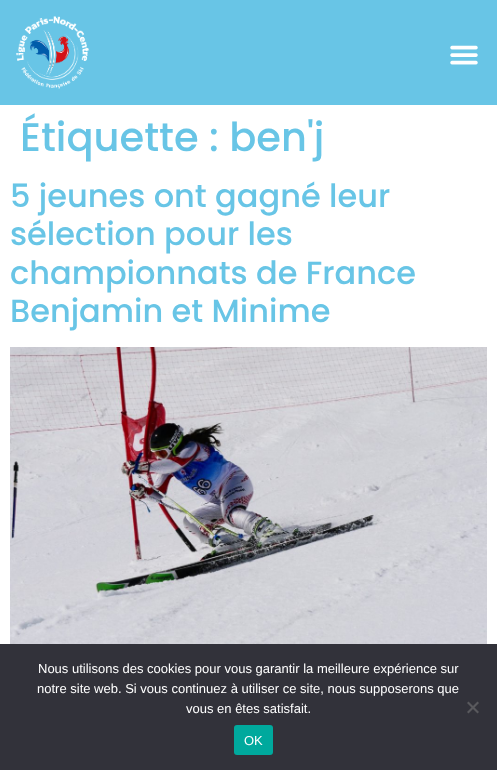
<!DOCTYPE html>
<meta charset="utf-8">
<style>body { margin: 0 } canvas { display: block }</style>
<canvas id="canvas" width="497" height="770"></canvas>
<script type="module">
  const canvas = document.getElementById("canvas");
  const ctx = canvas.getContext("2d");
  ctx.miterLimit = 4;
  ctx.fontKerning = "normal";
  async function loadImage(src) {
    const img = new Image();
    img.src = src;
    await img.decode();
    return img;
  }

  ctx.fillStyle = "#ffffff";
  ctx.fillRect(0, 0, 497, 770);
  ctx.fillStyle = "#68c5e6";
  ctx.fillRect(0, 0, 497, 105);
  ctx.drawImage(await loadImage("img1.png"), 16, 16, 74, 73);
  ctx.drawImage(await loadImage("img2.png"), 450, 45, 28, 20);
  ctx.font = "500 40px Poppins";
  ctx.fillText("Étiquette : ben'j", 20, 151);
  ctx.font = "500 32px Poppins";
  ctx.fillText("5 jeunes ont gagné leur", 10, 207);
  ctx.fillText("sélection pour les", 10, 245);
  ctx.fillText("championnats de France", 10, 284);
  ctx.fillText("Benjamin et Minime", 10, 322);
  ctx.drawImage(await loadImage("img3.png"), 10, 347, 477, 297);
  ctx.fillStyle = "#32323a";
  ctx.fillRect(0, 644, 497, 126);
  ctx.font = "13px Liberation Sans";
  ctx.fillStyle = "#ffffff";
  ctx.fillText("Nous utilisons des cookies pour vous garantir la meilleure expérience sur", 38, 673);
  ctx.fillText("notre site web. Si vous continuez à utiliser ce site, nous supposerons que", 37, 693);
  ctx.fillText("vous en êtes satisfait.", 186, 713);
  ctx.fillStyle = "#59595d";
  ctx.beginPath();
  ctx.moveTo(477.5, 701.5);
  ctx.lineTo(479, 703);
  ctx.lineTo(468.5, 713.5);
  ctx.lineTo(467, 712);
  ctx.closePath();
  ctx.fill();
  ctx.beginPath();
  ctx.moveTo(467, 703);
  ctx.lineTo(468.5, 701.5);
  ctx.lineTo(479, 712);
  ctx.lineTo(477.5, 713.5);
  ctx.closePath();
  ctx.fill();
  ctx.fillStyle = "#00a99d";
  ctx.beginPath();
  ctx.roundRect(234, 725, 39, 30, 3);
  ctx.fill();
  ctx.fillStyle = "#ffffff";
  ctx.fillText("OK", 244, 745);
</script>
